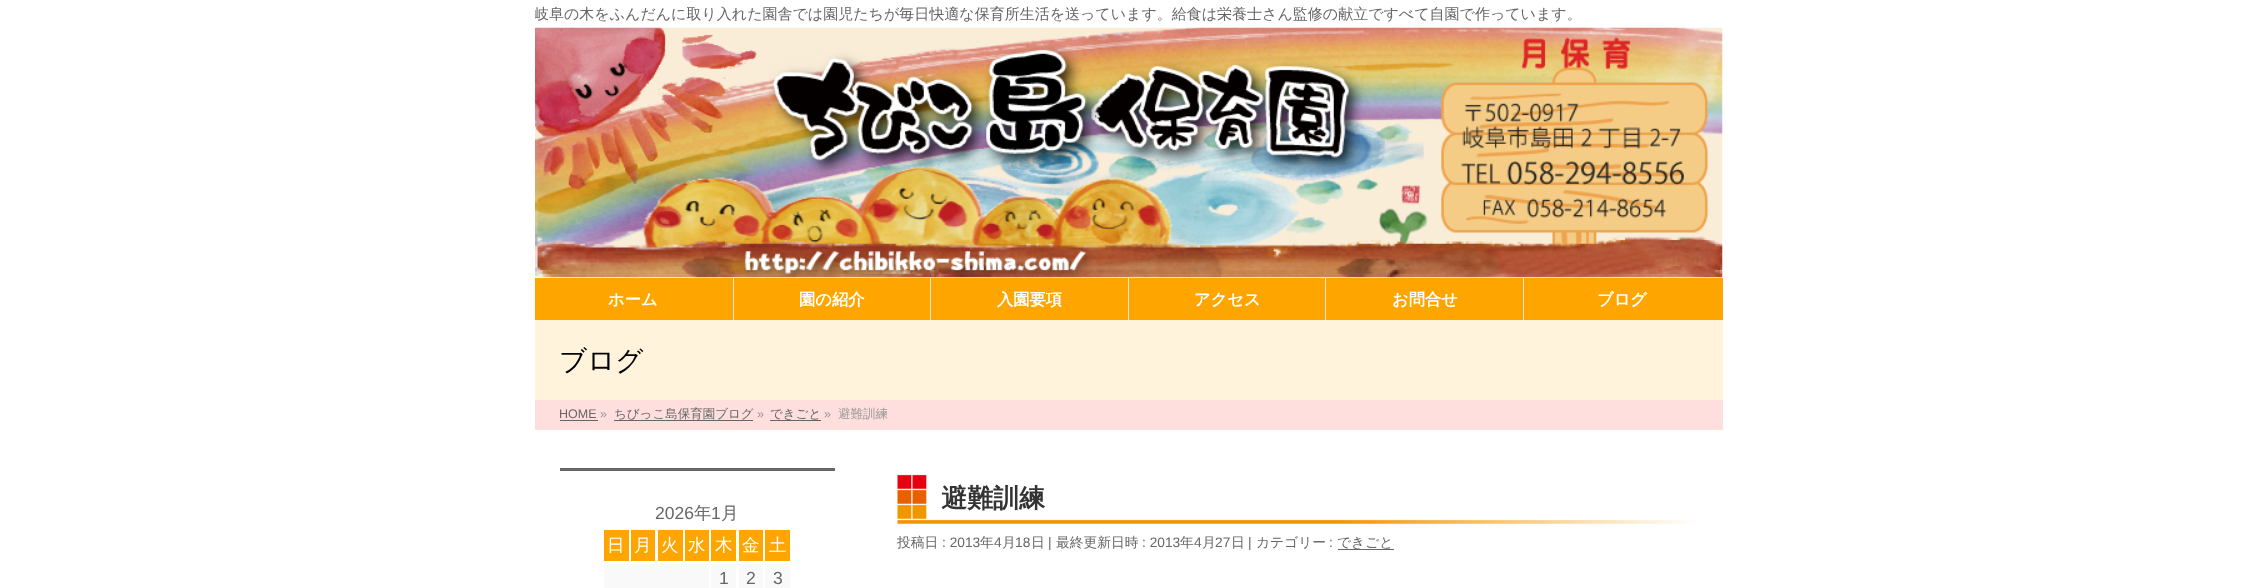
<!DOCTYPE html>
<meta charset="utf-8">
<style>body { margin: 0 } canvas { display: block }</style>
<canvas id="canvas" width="2256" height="588"></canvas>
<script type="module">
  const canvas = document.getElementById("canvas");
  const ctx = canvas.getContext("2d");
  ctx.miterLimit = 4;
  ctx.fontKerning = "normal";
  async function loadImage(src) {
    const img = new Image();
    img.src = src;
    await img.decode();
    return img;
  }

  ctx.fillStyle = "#ffffff";
  ctx.fillRect(0, 0, 2256, 588);
  ctx.save();
  ctx.beginPath();
  ctx.rect(535, 0, 1188, 28);
  ctx.clip();
  ctx.font = "500 15px WenQuanYi Zen Hei";
  ctx.fillStyle = "#666666";
  ctx.fillText("岐阜の木をふんだんに取り入れた園舎では園児たちが毎日快適な保育所生活を送っています。給食は栄養士さん監修の献立ですべて自園で作っています。", 534, 19);
  ctx.restore();
  ctx.drawImage(await loadImage("img1.png"), 535, 27, 1188, 251);
  ctx.fillStyle = "#ffa500";
  ctx.fillRect(535, 278, 1188, 42);
  ctx.font = "bold 16.25px WenQuanYi Zen Hei";
  ctx.fillStyle = "#ffffff";
  ctx.fillText("ホーム", 608, 305);
  ctx.fillStyle = "#e5e5e5";
  ctx.fillRect(733, 278, 1, 42);
  ctx.fillStyle = "#ffffff";
  ctx.fillText("園の紹介", 799, 305);
  ctx.fillStyle = "#e5e5e5";
  ctx.fillRect(930, 278, 1, 42);
  ctx.fillStyle = "#ffffff";
  ctx.fillText("入園要項", 997, 305);
  ctx.fillStyle = "#e5e5e5";
  ctx.fillRect(1128, 278, 1, 42);
  ctx.fillStyle = "#ffffff";
  ctx.fillText("アクセス", 1194, 305);
  ctx.fillStyle = "#e5e5e5";
  ctx.fillRect(1325, 278, 1, 42);
  ctx.fillStyle = "#ffffff";
  ctx.fillText("お問合せ", 1392, 305);
  ctx.fillStyle = "#e5e5e5";
  ctx.fillRect(1523, 278, 1, 42);
  ctx.fillStyle = "#ffffff";
  ctx.fillText("ブログ", 1597, 305);
  ctx.fillStyle = "#fff3dc";
  ctx.fillRect(535, 320, 1188, 80);
  ctx.font = "500 27.5px WenQuanYi Zen Hei";
  ctx.fillStyle = "#000000";
  ctx.fillText("ブログ", 559, 370);
  ctx.fillStyle = "#ffdede";
  ctx.fillRect(535, 400, 1188, 30);
  ctx.font = "12.5px Liberation Sans";
  ctx.fillStyle = "#666666";
  ctx.fillText("HOME", 559, 418);
  ctx.fillRect(560, 420, 38, 1);
  ctx.fillStyle = "#999999";
  ctx.fillText("»", 600, 418);
  ctx.font = "500 12.5px WenQuanYi Zen Hei";
  ctx.fillStyle = "#666666";
  ctx.fillText("ちびっこ島保育園ブログ", 614, 418);
  ctx.fillRect(614, 420, 139, 1);
  ctx.font = "12.5px Liberation Sans";
  ctx.fillStyle = "#999999";
  ctx.fillText("»", 757, 418);
  ctx.fillStyle = "#666666";
  ctx.fillRect(770, 420, 51, 1);
  ctx.font = "500 12.5px WenQuanYi Zen Hei";
  ctx.fillText("できごと", 770, 418);
  ctx.font = "12.5px Liberation Sans";
  ctx.fillStyle = "#999999";
  ctx.fillText("»", 824, 418);
  ctx.font = "500 12.5px WenQuanYi Zen Hei";
  ctx.fillText("避難訓練", 838, 418);
  ctx.fillStyle = "#666666";
  ctx.fillRect(560, 468, 275, 3);
  ctx.font = "17.5px Liberation Sans";
  ctx.fillText("2026", 655, 519);
  ctx.font = "500 17.5px WenQuanYi Zen Hei";
  ctx.fillText("年", 694, 519);
  ctx.font = "17.5px Liberation Sans";
  ctx.fillText("1", 711, 519);
  ctx.font = "500 17.5px WenQuanYi Zen Hei";
  ctx.fillText("月", 721, 519);
  ctx.fillStyle = "#ffa500";
  ctx.fillRect(604, 530, 25, 31);
  ctx.fillStyle = "#ffffff";
  ctx.fillText("日", 607, 551);
  ctx.fillStyle = "#ffa500";
  ctx.fillRect(631, 530, 24, 31);
  ctx.fillStyle = "#ffffff";
  ctx.fillText("月", 634, 551);
  ctx.fillStyle = "#ffa500";
  ctx.fillRect(658, 530, 25, 31);
  ctx.fillStyle = "#ffffff";
  ctx.fillText("火", 661, 551);
  ctx.fillStyle = "#ffa500";
  ctx.fillRect(685, 530, 24, 31);
  ctx.fillStyle = "#ffffff";
  ctx.fillText("水", 688, 551);
  ctx.fillStyle = "#ffa500";
  ctx.fillRect(711, 530, 25, 31);
  ctx.fillStyle = "#ffffff";
  ctx.fillText("木", 715, 551);
  ctx.fillStyle = "#ffa500";
  ctx.fillRect(739, 530, 24, 31);
  ctx.fillStyle = "#ffffff";
  ctx.fillText("金", 742, 551);
  ctx.fillStyle = "#ffa500";
  ctx.fillRect(765, 530, 25, 31);
  ctx.fillStyle = "#ffffff";
  ctx.fillText("土", 769, 551);
  ctx.fillStyle = "#f9f9f9";
  ctx.fillRect(604, 564, 105, 24);
  ctx.fillRect(711, 564, 25, 24);
  ctx.font = "17.5px Liberation Sans";
  ctx.fillStyle = "#666666";
  ctx.fillText("1", 719, 584);
  ctx.fillStyle = "#f9f9f9";
  ctx.fillRect(739, 564, 24, 24);
  ctx.fillStyle = "#666666";
  ctx.fillText("2", 746, 584);
  ctx.fillStyle = "#f9f9f9";
  ctx.fillRect(765, 564, 25, 24);
  ctx.fillStyle = "#666666";
  ctx.fillText("3", 773, 584);
  ctx.drawImage(await loadImage("img2.png"), 897, 474, 795, 50);
  ctx.font = "bold 26px WenQuanYi Zen Hei";
  ctx.fillStyle = "#333333";
  ctx.fillText("避難訓練", 941, 507);
  ctx.font = "500 13.75px WenQuanYi Zen Hei";
  ctx.fillStyle = "#666666";
  ctx.fillText("投稿日", 897, 547);
  ctx.font = "13.75px Liberation Sans";
  ctx.fillText(": 2013", 942, 547);
  ctx.font = "500 13.75px WenQuanYi Zen Hei";
  ctx.fillText("年", 980, 547);
  ctx.font = "13.75px Liberation Sans";
  ctx.fillText("4", 994, 547);
  ctx.font = "500 13.75px WenQuanYi Zen Hei";
  ctx.fillText("月", 1002, 547);
  ctx.font = "13.75px Liberation Sans";
  ctx.fillText("18", 1015, 547);
  ctx.font = "500 13.75px WenQuanYi Zen Hei";
  ctx.fillText("日", 1031, 547);
  ctx.font = "13.75px Liberation Sans";
  ctx.fillText("|", 1048, 547);
  ctx.font = "500 13.75px WenQuanYi Zen Hei";
  ctx.fillText("最終更新日時", 1056, 547);
  ctx.font = "13.75px Liberation Sans";
  ctx.fillText(": 2013", 1142, 547);
  ctx.font = "500 13.75px WenQuanYi Zen Hei";
  ctx.fillText("年", 1180, 547);
  ctx.font = "13.75px Liberation Sans";
  ctx.fillText("4", 1194, 547);
  ctx.font = "500 13.75px WenQuanYi Zen Hei";
  ctx.fillText("月", 1202, 547);
  ctx.font = "13.75px Liberation Sans";
  ctx.fillText("27", 1215, 547);
  ctx.font = "500 13.75px WenQuanYi Zen Hei";
  ctx.fillText("日", 1231, 547);
  ctx.font = "13.75px Liberation Sans";
  ctx.fillText("|", 1248, 547);
  ctx.font = "500 13.75px WenQuanYi Zen Hei";
  ctx.fillText("カテゴリー", 1256, 547);
  ctx.font = "13.75px Liberation Sans";
  ctx.fillText(":", 1329, 547);
  ctx.fillRect(1338, 549, 56, 1);
  ctx.font = "500 13.75px WenQuanYi Zen Hei";
  ctx.fillText("できごと", 1337, 547);
</script>
